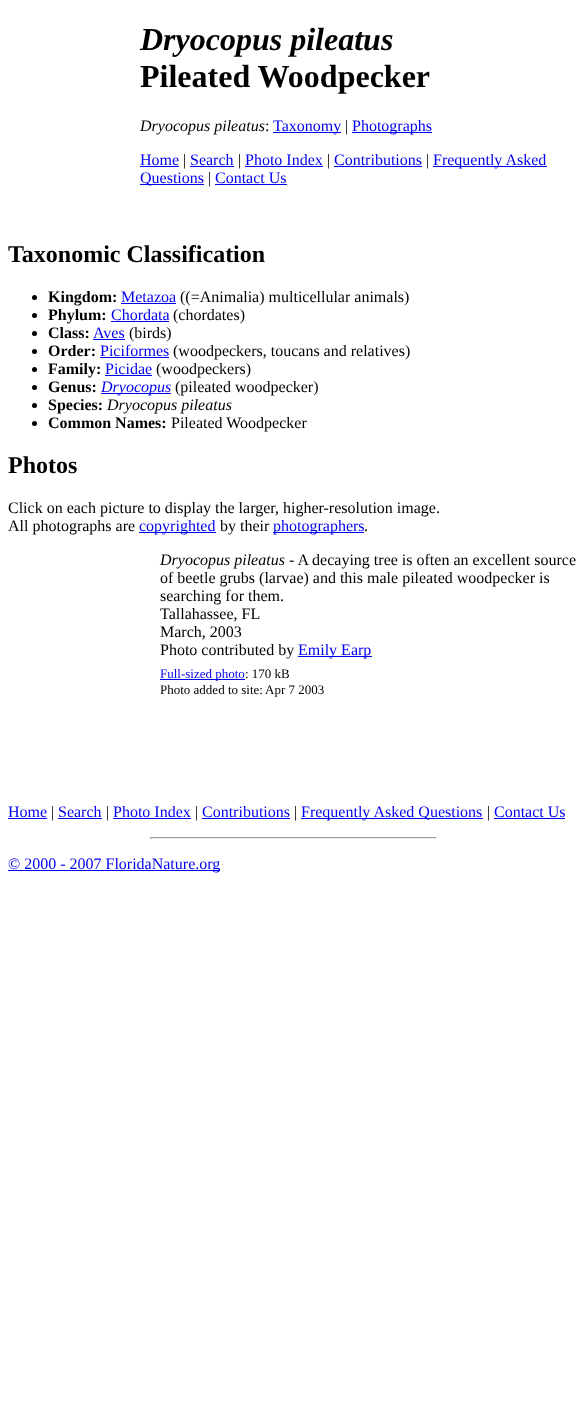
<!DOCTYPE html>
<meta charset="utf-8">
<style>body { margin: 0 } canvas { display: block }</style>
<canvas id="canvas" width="587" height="1406"></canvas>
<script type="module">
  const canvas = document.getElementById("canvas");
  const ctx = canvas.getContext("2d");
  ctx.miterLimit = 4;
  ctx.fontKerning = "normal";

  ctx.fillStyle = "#ffffff";
  ctx.fillRect(0, 0, 587, 1406);
  ctx.font = "italic bold 32px Liberation Serif";
  ctx.fillStyle = "#000000";
  ctx.fillText("Dryocopus pileatus", 140, 50);
  ctx.font = "bold 32px Liberation Serif";
  ctx.fillText("Pileated Woodpecker", 140, 87);
  ctx.font = "italic 16px Liberation Serif";
  ctx.fillText("Dryocopus pileatus", 140, 131);
  ctx.font = "16px Liberation Serif";
  ctx.fillText(":", 265, 131);
  ctx.fillStyle = "#0000ee";
  ctx.fillRect(273, 132, 68, 1);
  ctx.fillText("Taxonomy", 273, 131);
  ctx.fillStyle = "#000000";
  ctx.fillText("|", 345, 131);
  ctx.fillStyle = "#0000ee";
  ctx.fillRect(352, 132, 80, 1);
  ctx.fillText("Photographs", 352, 131);
  ctx.fillText("Home", 140, 165);
  ctx.fillRect(140, 166, 39, 1);
  ctx.fillStyle = "#000000";
  ctx.fillText("|", 183, 165);
  ctx.fillStyle = "#0000ee";
  ctx.fillText("Search", 190, 165);
  ctx.fillRect(190, 166, 44, 1);
  ctx.fillStyle = "#000000";
  ctx.fillText("|", 238, 165);
  ctx.fillStyle = "#0000ee";
  ctx.fillText("Photo Index", 245, 165);
  ctx.fillRect(245, 166, 78, 1);
  ctx.fillStyle = "#000000";
  ctx.fillText("|", 327, 165);
  ctx.fillStyle = "#0000ee";
  ctx.fillText("Contributions", 334, 165);
  ctx.fillRect(334, 166, 88, 1);
  ctx.fillStyle = "#000000";
  ctx.fillText("|", 426, 165);
  ctx.fillStyle = "#0000ee";
  ctx.fillRect(433, 166, 114, 1);
  ctx.fillText("Frequently Asked", 433, 165);
  ctx.fillRect(140, 184, 64, 1);
  ctx.fillText("Questions", 140, 183);
  ctx.fillStyle = "#000000";
  ctx.fillText("|", 208, 183);
  ctx.fillStyle = "#0000ee";
  ctx.fillText("Contact Us", 215, 183);
  ctx.fillRect(215, 184, 72, 1);
  ctx.font = "bold 24px Liberation Serif";
  ctx.fillStyle = "#000000";
  ctx.fillText("Taxonomic Classification", 8, 262);
  ctx.beginPath();
  ctx.arc(34.5, 297.5, 2.5, 0, Math.PI * 2);
  ctx.fill();
  ctx.font = "bold 16px Liberation Serif";
  ctx.fillText("Kingdom:", 48, 302);
  ctx.font = "16px Liberation Serif";
  ctx.fillStyle = "#0000ee";
  ctx.fillText("Metazoa", 121, 302);
  ctx.fillRect(121, 303, 55, 1);
  ctx.fillStyle = "#000000";
  ctx.fillText("((=Animalia) multicellular animals)", 180, 302);
  ctx.beginPath();
  ctx.arc(34.5, 315.5, 2.5, 0, Math.PI * 2);
  ctx.fill();
  ctx.font = "bold 16px Liberation Serif";
  ctx.fillText("Phylum:", 48, 320);
  ctx.font = "16px Liberation Serif";
  ctx.fillStyle = "#0000ee";
  ctx.fillText("Chordata", 111, 320);
  ctx.fillRect(111, 321, 58, 1);
  ctx.fillStyle = "#000000";
  ctx.fillText("(chordates)", 173, 320);
  ctx.beginPath();
  ctx.arc(34.5, 333.5, 2.5, 0, Math.PI * 2);
  ctx.fill();
  ctx.font = "bold 16px Liberation Serif";
  ctx.fillText("Class:", 48, 338);
  ctx.font = "16px Liberation Serif";
  ctx.fillStyle = "#0000ee";
  ctx.fillText("Aves", 93, 338);
  ctx.fillRect(93, 339, 32, 1);
  ctx.fillStyle = "#000000";
  ctx.fillText("(birds)", 129, 338);
  ctx.beginPath();
  ctx.arc(34.5, 351.5, 2.5, 0, Math.PI * 2);
  ctx.fill();
  ctx.font = "bold 16px Liberation Serif";
  ctx.fillText("Order:", 48, 356);
  ctx.font = "16px Liberation Serif";
  ctx.fillStyle = "#0000ee";
  ctx.fillText("Piciformes", 100, 356);
  ctx.fillRect(100, 357, 69, 1);
  ctx.fillStyle = "#000000";
  ctx.fillText("(woodpeckers, toucans and relatives)", 173, 356);
  ctx.beginPath();
  ctx.arc(34.5, 369.5, 2.5, 0, Math.PI * 2);
  ctx.fill();
  ctx.font = "bold 16px Liberation Serif";
  ctx.fillText("Family:", 48, 374);
  ctx.font = "16px Liberation Serif";
  ctx.fillStyle = "#0000ee";
  ctx.fillText("Picidae", 105, 374);
  ctx.fillRect(105, 375, 47, 1);
  ctx.fillStyle = "#000000";
  ctx.fillText("(woodpeckers)", 156, 374);
  ctx.beginPath();
  ctx.arc(34.5, 387.5, 2.5, 0, Math.PI * 2);
  ctx.fill();
  ctx.font = "bold 16px Liberation Serif";
  ctx.fillText("Genus:", 48, 392);
  ctx.fillStyle = "#0000ee";
  ctx.fillRect(101, 393, 70, 1);
  ctx.font = "italic 16px Liberation Serif";
  ctx.fillText("Dryocopus", 101, 392);
  ctx.font = "16px Liberation Serif";
  ctx.fillStyle = "#000000";
  ctx.fillText("(pileated woodpecker)", 175, 392);
  ctx.beginPath();
  ctx.arc(34.5, 405.5, 2.5, 0, Math.PI * 2);
  ctx.fill();
  ctx.font = "bold 16px Liberation Serif";
  ctx.fillText("Species:", 48, 410);
  ctx.font = "italic 16px Liberation Serif";
  ctx.fillText("Dryocopus pileatus", 107, 410);
  ctx.beginPath();
  ctx.arc(34.5, 423.5, 2.5, 0, Math.PI * 2);
  ctx.fill();
  ctx.font = "bold 16px Liberation Serif";
  ctx.fillText("Common Names:", 48, 428);
  ctx.font = "16px Liberation Serif";
  ctx.fillText("Pileated Woodpecker", 171, 428);
  ctx.font = "bold 24px Liberation Serif";
  ctx.fillText("Photos", 8, 473);
  ctx.font = "16px Liberation Serif";
  ctx.fillText("Click on each picture to display the larger, higher-resolution image.", 8, 513);
  ctx.fillText("All photographs are", 8, 531);
  ctx.fillStyle = "#0000ee";
  ctx.fillRect(139, 532, 77, 1);
  ctx.fillText("copyrighted", 139, 531);
  ctx.fillStyle = "#000000";
  ctx.fillText("by their", 220, 531);
  ctx.fillStyle = "#0000ee";
  ctx.fillRect(273, 532, 91, 1);
  ctx.fillText("photographers", 273, 531);
  ctx.fillStyle = "#000000";
  ctx.fillText(".", 364, 531);
  ctx.font = "italic 16px Liberation Serif";
  ctx.fillText("Dryocopus pileatus", 160, 565);
  ctx.font = "16px Liberation Serif";
  ctx.fillText("- A decaying tree is often an excellent source", 289, 565);
  ctx.fillText("of beetle grubs (larvae) and this male pileated woodpecker is", 160, 583);
  ctx.fillText("searching for them.", 160, 601);
  ctx.fillText("Tallahassee, FL", 160, 619);
  ctx.fillText("March, 2003", 160, 637);
  ctx.fillText("Photo contributed by", 160, 655);
  ctx.fillStyle = "#0000ee";
  ctx.fillRect(298, 656, 74, 1);
  ctx.fillText("Emily Earp", 298, 655);
  ctx.fillRect(160, 679, 85, 1);
  ctx.font = "13px Liberation Serif";
  ctx.fillText("Full-sized photo", 160, 678);
  ctx.fillStyle = "#000000";
  ctx.fillText(": 170 kB", 245, 678);
  ctx.fillText("Photo added to site:", 160, 694);
  ctx.fillText("Apr 7 2003", 265, 694);
  ctx.font = "16px Liberation Serif";
  ctx.fillStyle = "#0000ee";
  ctx.fillText("Home", 8, 817);
  ctx.fillRect(8, 818, 39, 1);
  ctx.fillStyle = "#000000";
  ctx.fillText("|", 51, 817);
  ctx.fillStyle = "#0000ee";
  ctx.fillText("Search", 58, 817);
  ctx.fillRect(58, 818, 44, 1);
  ctx.fillStyle = "#000000";
  ctx.fillText("|", 106, 817);
  ctx.fillStyle = "#0000ee";
  ctx.fillText("Photo Index", 113, 817);
  ctx.fillRect(113, 818, 78, 1);
  ctx.fillStyle = "#000000";
  ctx.fillText("|", 195, 817);
  ctx.fillStyle = "#0000ee";
  ctx.fillText("Contributions", 202, 817);
  ctx.fillRect(202, 818, 88, 1);
  ctx.fillStyle = "#000000";
  ctx.fillText("|", 294, 817);
  ctx.fillStyle = "#0000ee";
  ctx.fillRect(301, 818, 182, 1);
  ctx.fillText("Frequently Asked Questions", 301, 817);
  ctx.fillStyle = "#000000";
  ctx.fillText("|", 487, 817);
  ctx.fillStyle = "#0000ee";
  ctx.fillText("Contact Us", 494, 817);
  ctx.fillRect(494, 818, 71, 1);
  ctx.fillStyle = "#9f9f9f";
  ctx.fillRect(150, 837, 287, 1);
  ctx.fillStyle = "#eeeeee";
  ctx.fillRect(436, 837, 1, 2);
  ctx.fillRect(150, 838, 287, 1);
  ctx.fillStyle = "#9f9f9f";
  ctx.fillRect(150, 837, 1, 2);
  ctx.fillStyle = "#0000ee";
  ctx.fillRect(8, 870, 212, 1);
  ctx.fillText("© 2000 - 2007 FloridaNature.org", 8, 869);
</script>
